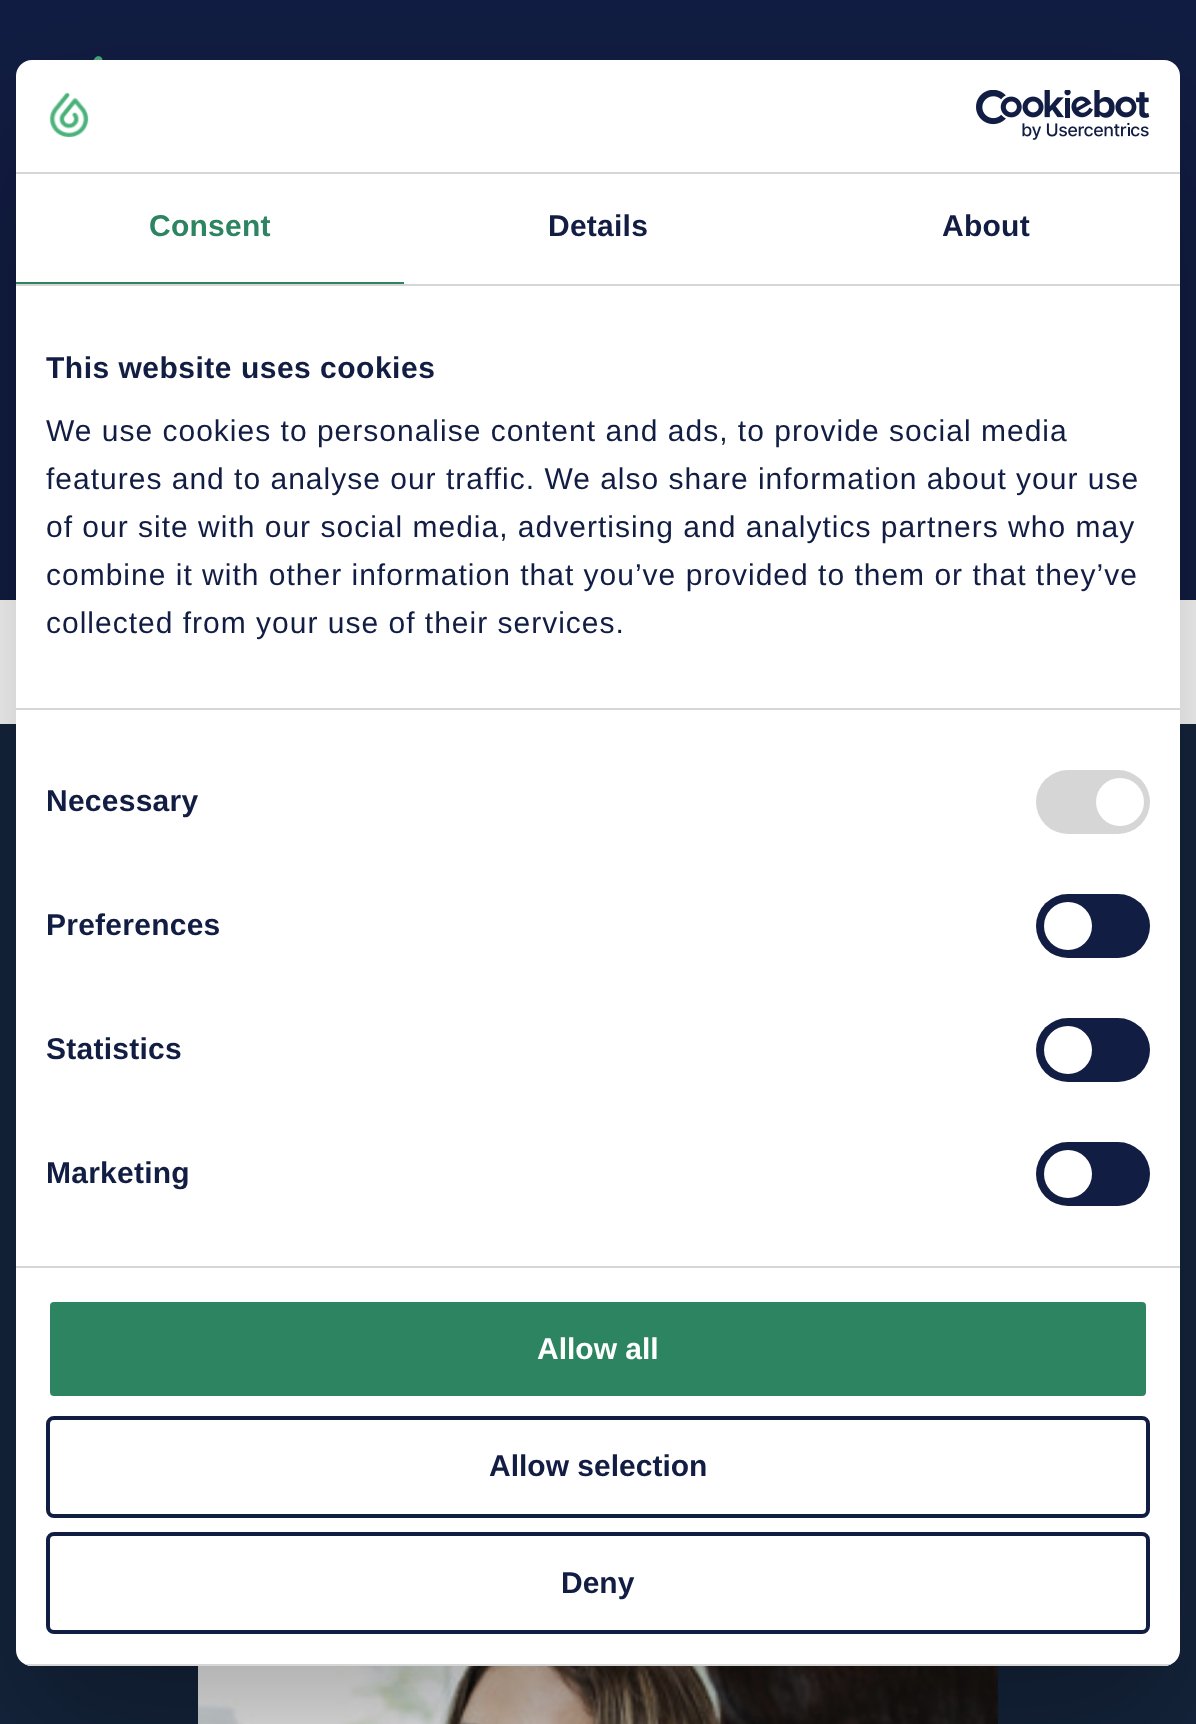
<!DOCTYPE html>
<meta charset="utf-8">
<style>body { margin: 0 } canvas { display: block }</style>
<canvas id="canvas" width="1196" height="1724"></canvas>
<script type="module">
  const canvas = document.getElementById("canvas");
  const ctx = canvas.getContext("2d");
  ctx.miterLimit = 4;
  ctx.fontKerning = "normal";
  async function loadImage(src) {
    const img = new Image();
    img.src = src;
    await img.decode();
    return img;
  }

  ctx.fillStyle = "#ffffff";
  ctx.fillRect(0, 0, 1196, 1724);
  ctx.fillStyle = "#121d43";
  ctx.fillRect(0, 0, 1196, 600);
  ctx.fillStyle = "#15253d";
  ctx.fillRect(0, 724, 1196, 1000);
  ctx.drawImage(await loadImage("img1.png"), 198, 1666, 800, 58);
  ctx.drawImage(await loadImage("img2.png"), 93, 56, 10, 4);
  ctx.fillStyle = "rgba(0, 0, 0, 0.3)";
  ctx.filter = "blur(68px)";
  ctx.beginPath();
  ctx.roundRect(16, 124, 1164, 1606, 16);
  ctx.fill();
  ctx.filter = "none";
  ctx.fillStyle = "#ffffff";
  ctx.beginPath();
  ctx.roundRect(16, 60, 1164, 1606, 16);
  ctx.fill();
  ctx.fillStyle = "#d6d6d6";
  ctx.fillRect(16, 172, 1164, 2);
  ctx.drawImage(await loadImage("img3.png"), 49, 92, 40, 45);
  ctx.drawImage(await loadImage("img4.png"), 976, 90, 174, 50);
  ctx.fillRect(16, 284, 1164, 2);
  ctx.fillStyle = "#2d8461";
  ctx.fillRect(16, 282, 388, 2);
  ctx.letterSpacing = "0.25px";
  ctx.font = "bold 30px Liberation Sans";
  ctx.fillText("Consent", 149, 236);
  ctx.fillStyle = "#121d43";
  ctx.fillText("Details", 548, 236);
  ctx.fillText("About", 942, 236);
  ctx.fillStyle = "#d6d6d6";
  ctx.fillRect(16, 708, 1164, 2);
  ctx.letterSpacing = "0.5px";
  ctx.fillStyle = "#121d43";
  ctx.fillText("This website uses cookies", 46, 378);
  ctx.letterSpacing = "1px";
  ctx.font = "30px Liberation Sans";
  ctx.fillText("We use cookies to personalise content and ads, to provide social media", 46, 441);
  ctx.fillText("features and to analyse our traffic. We also share information about your use", 46, 489);
  ctx.fillText("of our site with our social media, advertising and analytics partners who may", 46, 537);
  ctx.fillText("combine it with other information that you’ve provided to them or that they’ve", 46, 585);
  ctx.fillText("collected from your use of their services.", 46, 633);
  ctx.fillStyle = "#d6d6d6";
  ctx.fillRect(16, 1266, 1164, 2);
  ctx.letterSpacing = "0.25px";
  ctx.font = "bold 30px Liberation Sans";
  ctx.fillStyle = "#121d43";
  ctx.fillText("Necessary", 46, 811);
  ctx.fillStyle = "#d6d6d6";
  ctx.beginPath();
  ctx.roundRect(1036, 770, 114, 64, 32);
  ctx.fill();
  ctx.fillStyle = "#ffffff";
  ctx.beginPath();
  ctx.arc(1120, 802, 24, 0, Math.PI * 2);
  ctx.fill();
  ctx.fillStyle = "#121d43";
  ctx.fillText("Preferences", 46, 935);
  ctx.beginPath();
  ctx.roundRect(1036, 894, 114, 64, 32);
  ctx.fill();
  ctx.fillStyle = "#ffffff";
  ctx.beginPath();
  ctx.arc(1068, 926, 24, 0, Math.PI * 2);
  ctx.fill();
  ctx.fillStyle = "#121d43";
  ctx.fillText("Statistics", 46, 1059);
  ctx.beginPath();
  ctx.roundRect(1036, 1018, 114, 64, 32);
  ctx.fill();
  ctx.fillStyle = "#ffffff";
  ctx.beginPath();
  ctx.arc(1068, 1050, 24, 0, Math.PI * 2);
  ctx.fill();
  ctx.fillStyle = "#121d43";
  ctx.fillText("Marketing", 46, 1183);
  ctx.beginPath();
  ctx.roundRect(1036, 1142, 114, 64, 32);
  ctx.fill();
  ctx.fillStyle = "#ffffff";
  ctx.beginPath();
  ctx.arc(1068, 1174, 24, 0, Math.PI * 2);
  ctx.fill();
  ctx.save();
  ctx.beginPath();
  ctx.roundRect(16, 60, 1164, 1606, 16);
  ctx.clip();
  ctx.fillStyle = "#d6d6d6";
  ctx.fillRect(16, 1664, 1164, 2);
  ctx.restore();
  ctx.fillStyle = "#2d8461";
  ctx.beginPath();
  ctx.roundRect(48, 1300, 1100, 98, 6);
  ctx.fill();
  ctx.strokeStyle = "#ffffff";
  ctx.lineWidth = 4;
  ctx.stroke();
  ctx.letterSpacing = "0px";
  ctx.fillStyle = "#ffffff";
  ctx.fillText("Allow all", 537, 1359);
  ctx.beginPath();
  ctx.roundRect(48, 1418, 1100, 98, 6);
  ctx.strokeStyle = "#121d43";
  ctx.stroke();
  ctx.fillStyle = "#121d43";
  ctx.fillText("Allow selection", 489, 1476);
  ctx.beginPath();
  ctx.roundRect(48, 1534, 1100, 98, 6);
  ctx.stroke();
  ctx.fillText("Deny", 561, 1593);
</script>
